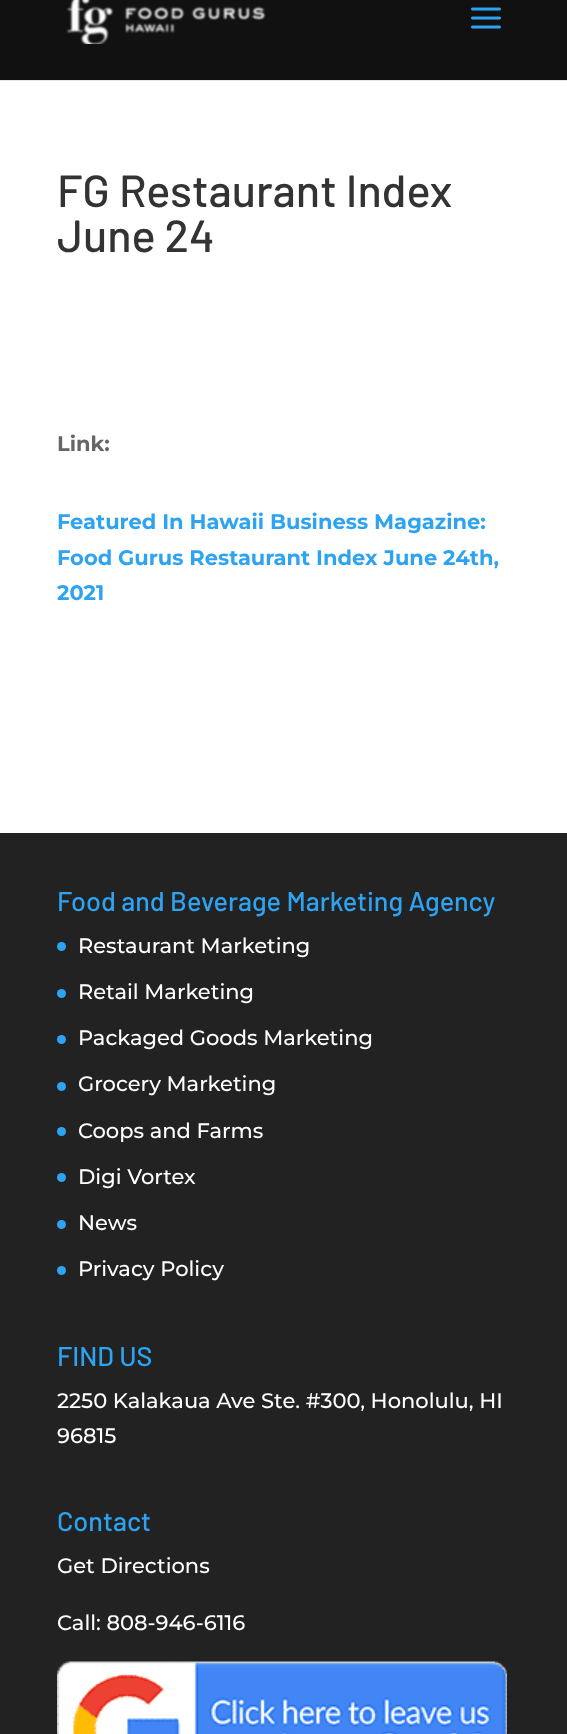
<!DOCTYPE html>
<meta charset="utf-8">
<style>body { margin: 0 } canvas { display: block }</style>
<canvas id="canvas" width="567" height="1734"></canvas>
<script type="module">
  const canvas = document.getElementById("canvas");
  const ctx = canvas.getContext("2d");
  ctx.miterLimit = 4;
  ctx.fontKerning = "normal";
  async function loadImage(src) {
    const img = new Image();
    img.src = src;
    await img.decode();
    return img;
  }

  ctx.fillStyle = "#ffffff";
  ctx.fillRect(0, 0, 567, 1734);
  ctx.fillStyle = "#e6e6e6";
  ctx.fillRect(0, 80, 567, 1);
  ctx.fillStyle = "#111111";
  ctx.fillRect(0, 0, 567, 80);
  ctx.drawImage(await loadImage("img1.png"), 66, 0, 200, 44);
  ctx.drawImage(await loadImage("img2.png"), 471, 7, 30, 22);
  ctx.font = "500 45px Barlow";
  ctx.fillStyle = "#333333";
  ctx.fillText("FG Restaurant Index", 57, 207);
  ctx.fillText("June 24", 57, 252);
  ctx.font = "100 21px 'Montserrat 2'";
  ctx.fillStyle = "#666666";
  ctx.fillText("Link:", 57, 451);
  ctx.fillStyle = "#2ea3f2";
  ctx.fillText("Featured In Hawaii Business Magazine:", 57, 529);
  ctx.fillText("Food Gurus Restaurant Index June 24th,", 57, 565);
  ctx.fillText("2021", 57, 600);
  ctx.fillStyle = "#222222";
  ctx.fillRect(0, 833, 567, 901);
  ctx.font = "500 27px Barlow";
  ctx.fillStyle = "#2ea3f2";
  ctx.fillText("Food and Beverage Marketing Agency", 57, 911);
  ctx.beginPath();
  ctx.arc(61.5, 946.5, 4.5, 0, Math.PI * 2);
  ctx.fill();
  ctx.font = "100 21px Montserrat";
  ctx.fillStyle = "#ffffff";
  ctx.fillText("Restaurant Marketing", 78, 953);
  ctx.fillStyle = "#2ea3f2";
  ctx.beginPath();
  ctx.arc(61.5, 993.5, 4.5, 0, Math.PI * 2);
  ctx.fill();
  ctx.fillStyle = "#ffffff";
  ctx.fillText("Retail Marketing", 78, 999);
  ctx.fillStyle = "#2ea3f2";
  ctx.beginPath();
  ctx.arc(61.5, 1039.5, 4.5, 0, Math.PI * 2);
  ctx.fill();
  ctx.fillStyle = "#ffffff";
  ctx.fillText("Packaged Goods Marketing", 78, 1045);
  ctx.fillStyle = "#2ea3f2";
  ctx.beginPath();
  ctx.arc(61.5, 1086.5, 4.5, 0, Math.PI * 2);
  ctx.fill();
  ctx.fillStyle = "#ffffff";
  ctx.fillText("Grocery Marketing", 78, 1091);
  ctx.fillStyle = "#2ea3f2";
  ctx.beginPath();
  ctx.arc(61.5, 1131.5, 4.5, 0, Math.PI * 2);
  ctx.fill();
  ctx.fillStyle = "#ffffff";
  ctx.fillText("Coops and Farms", 78, 1138);
  ctx.fillStyle = "#2ea3f2";
  ctx.beginPath();
  ctx.arc(61.5, 1177.5, 4.5, 0, Math.PI * 2);
  ctx.fill();
  ctx.fillStyle = "#ffffff";
  ctx.fillText("Digi Vortex", 78, 1184);
  ctx.fillStyle = "#2ea3f2";
  ctx.beginPath();
  ctx.arc(61.5, 1224.5, 4.5, 0, Math.PI * 2);
  ctx.fill();
  ctx.fillStyle = "#ffffff";
  ctx.fillText("News", 78, 1230);
  ctx.fillStyle = "#2ea3f2";
  ctx.beginPath();
  ctx.arc(61.5, 1270.5, 4.5, 0, Math.PI * 2);
  ctx.fill();
  ctx.fillStyle = "#ffffff";
  ctx.fillText("Privacy Policy", 78, 1276);
  ctx.font = "500 27px Barlow";
  ctx.fillStyle = "#2ea3f2";
  ctx.fillText("FIND US", 57, 1366);
  ctx.font = "100 21px Montserrat";
  ctx.fillStyle = "#ffffff";
  ctx.fillText("2250 Kalakaua Ave Ste. #300, Honolulu, HI", 57, 1408);
  ctx.fillText("96815", 57, 1443);
  ctx.font = "500 27px Barlow";
  ctx.fillStyle = "#2ea3f2";
  ctx.fillText("Contact", 57, 1531);
  ctx.font = "100 21px Montserrat";
  ctx.fillStyle = "#ffffff";
  ctx.fillText("Get Directions", 57, 1573);
  ctx.fillText("Call: 808-946-6116", 57, 1630);
  ctx.drawImage(await loadImage("img3.png"), 57, 1661, 450, 73);
</script>
